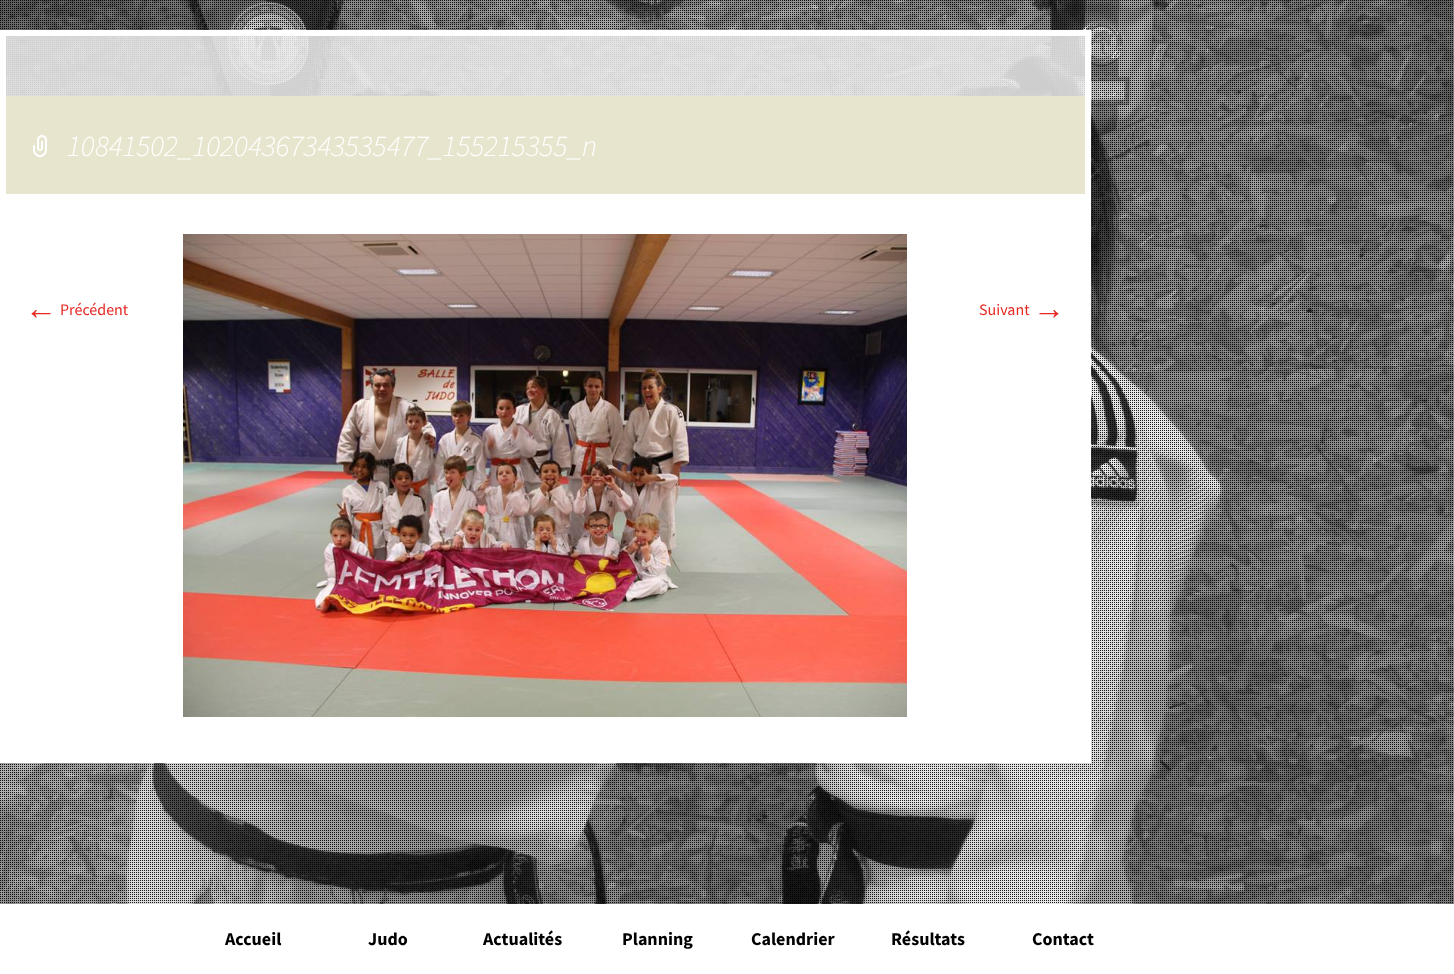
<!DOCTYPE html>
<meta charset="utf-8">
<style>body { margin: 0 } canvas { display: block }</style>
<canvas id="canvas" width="1454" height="974"></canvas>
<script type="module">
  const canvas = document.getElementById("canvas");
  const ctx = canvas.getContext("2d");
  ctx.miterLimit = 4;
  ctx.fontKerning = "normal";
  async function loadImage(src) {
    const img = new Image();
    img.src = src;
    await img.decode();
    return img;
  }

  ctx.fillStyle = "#ffffff";
  ctx.fillRect(0, 0, 1454, 974);
  ctx.drawImage(await loadImage("img1.png"), 0, 0, 1454, 904);
  ctx.drawImage(await loadImage("img2.png"), 0, 0, 1453, 903);
  ctx.fillStyle = "rgba(240, 240, 240, 0.85)";
  ctx.fillRect(6, 36, 1079, 60);
  ctx.strokeStyle = "#ffffff";
  ctx.lineWidth = 6;
  ctx.strokeRect(3, 33, 1085, 727);
  ctx.fillStyle = "#e8e5ce";
  ctx.fillRect(6, 96, 1079, 98);
  ctx.drawImage(await loadImage("img3.png"), 33, 135, 14, 22);
  ctx.font = "italic 300 30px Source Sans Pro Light";
  ctx.fillStyle = "#ffffff";
  ctx.fillText("10841502_10204367343535477_155215355_n", 67, 156);
  ctx.fillRect(6, 194, 1079, 563);
  ctx.drawImage(await loadImage("img4.png"), 183, 234, 724, 483);
  ctx.font = "32px Liberation Sans";
  ctx.fillStyle = "#e52822";
  ctx.fillText("←", 25, 319);
  ctx.font = "16px Source Sans Pro";
  ctx.fillText("Précédent", 60, 315);
  ctx.fillText("Suivant", 979, 315);
  ctx.font = "32px Liberation Sans";
  ctx.fillText("→", 1033, 319);
  ctx.font = "bold 18px Source Sans Pro";
  ctx.fillStyle = "#000000";
  ctx.fillText("Accueil", 225, 945);
  ctx.fillText("Judo", 368, 945);
  ctx.fillText("Actualités", 483, 945);
  ctx.fillText("Planning", 622, 945);
  ctx.fillText("Calendrier", 751, 945);
  ctx.fillText("Résultats", 891, 945);
  ctx.fillText("Contact", 1032, 945);
</script>
